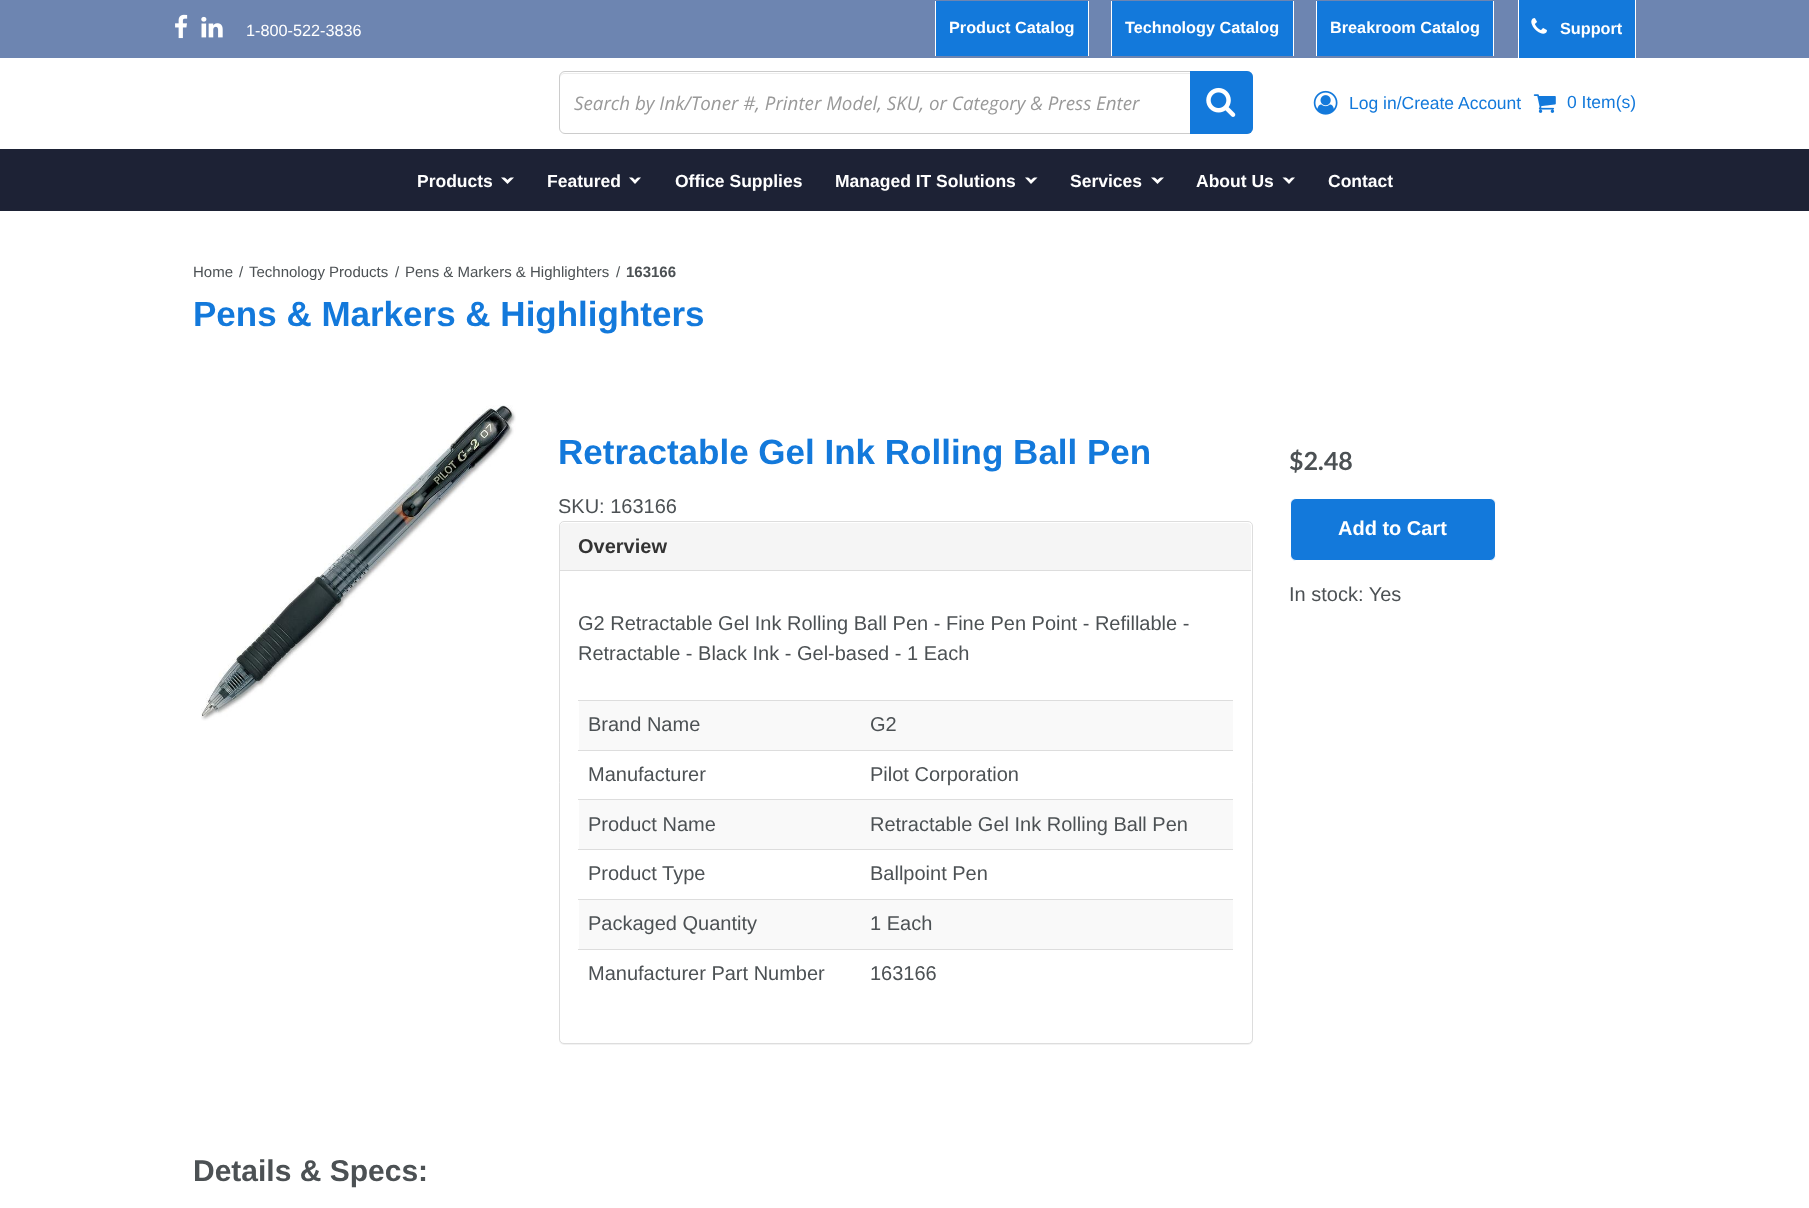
<!DOCTYPE html>
<meta charset="utf-8">
<style>body { margin: 0 } canvas { display: block }</style>
<canvas id="canvas" width="1809" height="1208"></canvas>
<script type="module">
  const canvas = document.getElementById("canvas");
  const ctx = canvas.getContext("2d");
  ctx.miterLimit = 4;
  ctx.fontKerning = "normal";
  async function loadImage(src) {
    const img = new Image();
    img.src = src;
    await img.decode();
    return img;
  }

  ctx.fillStyle = "#ffffff";
  ctx.fillRect(0, 0, 1809, 1208);
  ctx.fillStyle = "#6d85b1";
  ctx.fillRect(0, 0, 1809, 58);
  ctx.drawImage(await loadImage("img1.png"), 175, 14, 13, 25);
  ctx.drawImage(await loadImage("img2.png"), 201, 16, 22, 22);
  ctx.font = "16.25px Liberation Sans";
  ctx.fillStyle = "#ffffff";
  ctx.fillText("1-800-522-3836", 246, 36);
  ctx.fillStyle = "#1379db";
  ctx.fillRect(936, 1, 152, 55);
  ctx.fillStyle = "#ffffff";
  ctx.fillRect(1088, 1, 1, 55);
  ctx.fillRect(935, 1, 1, 55);
  ctx.font = "bold 16.25px Liberation Sans";
  ctx.fillText("Product Catalog", 949, 33);
  ctx.fillStyle = "#1379db";
  ctx.fillRect(1112, 1, 181, 55);
  ctx.fillStyle = "#ffffff";
  ctx.fillRect(1293, 1, 1, 55);
  ctx.fillRect(1111, 1, 1, 55);
  ctx.fillText("Technology Catalog", 1125, 33);
  ctx.fillStyle = "#1379db";
  ctx.fillRect(1317, 1, 176, 55);
  ctx.fillStyle = "#ffffff";
  ctx.fillRect(1493, 1, 1, 55);
  ctx.fillRect(1316, 1, 1, 55);
  ctx.fillText("Breakroom Catalog", 1330, 33);
  ctx.fillStyle = "#1379db";
  ctx.fillRect(1519, 0, 116, 58);
  ctx.fillStyle = "#ffffff";
  ctx.fillRect(1635, 0, 1, 58);
  ctx.fillRect(1518, 0, 1, 58);
  ctx.drawImage(await loadImage("img3.png"), 1531, 18, 16, 16);
  ctx.fillText("Support", 1560, 34);
  ctx.fillStyle = "#ececec";
  ctx.beginPath();
  ctx.moveTo(565, 74);
  ctx.lineTo(1246, 74);
  ctx.bezierCurveTo(1249, 74, 1251, 76, 1251, 79);
  ctx.lineTo(1251, 78);
  ctx.bezierCurveTo(1251, 75, 1249, 73, 1246, 73);
  ctx.lineTo(565, 73);
  ctx.bezierCurveTo(562, 73, 560, 75, 560, 78);
  ctx.lineTo(560, 79);
  ctx.bezierCurveTo(560, 76, 562, 74, 565, 74);
  ctx.closePath();
  ctx.fill();
  ctx.beginPath();
  ctx.roundRect(559.5, 71.5, 693, 62, 5.5);
  ctx.strokeStyle = "#cccccc";
  ctx.stroke();
  ctx.font = "italic 18.75px Open Sans";
  ctx.fillStyle = "#999999";
  ctx.fillText("Search by Ink/Toner #, Printer Model, SKU, or Category & Press Enter", 574, 110);
  ctx.fillStyle = "#1379db";
  ctx.beginPath();
  ctx.roundRect(1190, 71, 63, 63, [0, 6, 6, 0]);
  ctx.fill();
  ctx.drawImage(await loadImage("img4.png"), 1206, 87, 30, 30);
  ctx.drawImage(await loadImage("img5.png"), 1313, 90, 25, 25);
  ctx.font = "17.5px Liberation Sans";
  ctx.fillText("Log in/Create Account", 1349, 109);
  ctx.drawImage(await loadImage("img6.png"), 1533, 94, 23, 19);
  ctx.fillText("0 Item(s)", 1567, 108);
  ctx.fillStyle = "#1d2235";
  ctx.fillRect(0, 149, 1809, 62);
  ctx.font = "bold 17.5px Liberation Sans";
  ctx.fillStyle = "#ffffff";
  ctx.fillText("Products", 417, 187);
  ctx.beginPath();
  ctx.moveTo(501, 177.5);
  ctx.lineTo(514, 177.5);
  ctx.lineTo(507.5, 184);
  ctx.closePath();
  ctx.fill();
  ctx.fillStyle = "#1d2235";
  ctx.beginPath();
  ctx.moveTo(501, 174);
  ctx.lineTo(514, 174);
  ctx.lineTo(507.5, 180);
  ctx.closePath();
  ctx.fill();
  ctx.fillStyle = "#ffffff";
  ctx.fillText("Featured", 547, 187);
  ctx.beginPath();
  ctx.moveTo(629, 177.5);
  ctx.lineTo(641, 177.5);
  ctx.lineTo(635, 184);
  ctx.closePath();
  ctx.fill();
  ctx.fillStyle = "#1d2235";
  ctx.beginPath();
  ctx.moveTo(629, 174);
  ctx.lineTo(641, 174);
  ctx.lineTo(635, 180);
  ctx.closePath();
  ctx.fill();
  ctx.fillStyle = "#ffffff";
  ctx.fillText("Office Supplies", 675, 187);
  ctx.fillText("Managed IT Solutions", 835, 187);
  ctx.beginPath();
  ctx.moveTo(1025, 177.5);
  ctx.lineTo(1037.5, 177.5);
  ctx.lineTo(1031, 184);
  ctx.closePath();
  ctx.fill();
  ctx.fillStyle = "#1d2235";
  ctx.beginPath();
  ctx.moveTo(1025, 174);
  ctx.lineTo(1037.5, 174);
  ctx.lineTo(1031, 180);
  ctx.closePath();
  ctx.fill();
  ctx.fillStyle = "#ffffff";
  ctx.fillText("Services", 1070, 187);
  ctx.beginPath();
  ctx.moveTo(1151, 177.5);
  ctx.lineTo(1164, 177.5);
  ctx.lineTo(1157.5, 184);
  ctx.closePath();
  ctx.fill();
  ctx.fillStyle = "#1d2235";
  ctx.beginPath();
  ctx.moveTo(1151, 174);
  ctx.lineTo(1164, 174);
  ctx.lineTo(1157.5, 180);
  ctx.closePath();
  ctx.fill();
  ctx.fillStyle = "#ffffff";
  ctx.fillText("About Us", 1196, 187);
  ctx.beginPath();
  ctx.moveTo(1282.5, 177.5);
  ctx.lineTo(1295, 177.5);
  ctx.lineTo(1289, 184);
  ctx.closePath();
  ctx.fill();
  ctx.fillStyle = "#1d2235";
  ctx.beginPath();
  ctx.moveTo(1282.5, 174);
  ctx.lineTo(1295, 174);
  ctx.lineTo(1289, 180);
  ctx.closePath();
  ctx.fill();
  ctx.fillStyle = "#ffffff";
  ctx.fillText("Contact", 1328, 187);
  ctx.font = "15px Arimo";
  ctx.fillStyle = "#4c5154";
  ctx.fillText("Home", 193, 277);
  ctx.fillText("/", 239, 277);
  ctx.fillText("Technology Products", 249, 277);
  ctx.fillText("/", 395, 277);
  ctx.fillText("Pens & Markers & Highlighters", 405, 277);
  ctx.fillText("/", 616, 277);
  ctx.font = "bold 15px Arimo";
  ctx.fillText("163166", 626, 277);
  ctx.font = "bold 35px Arimo";
  ctx.fillStyle = "#1379db";
  ctx.fillText("Pens & Markers & Highlighters", 193, 326);
  ctx.drawImage(await loadImage("img7.png"), 201, 405, 315, 316);
  ctx.fillText("Retractable Gel Ink Rolling Ball Pen", 558, 464);
  ctx.font = "20px Liberation Sans";
  ctx.fillStyle = "#4c5154";
  ctx.fillText("SKU: 163166", 558, 513);
  ctx.fillStyle = "rgba(0, 0, 0, 0.05)";
  ctx.filter = "blur(0.5px)";
  ctx.beginPath();
  ctx.roundRect(559, 523, 694, 522, 5);
  ctx.fill();
  ctx.filter = "none";
  ctx.fillStyle = "#ffffff";
  ctx.beginPath();
  ctx.roundRect(559.5, 521.5, 693, 522, 4.5);
  ctx.fill();
  ctx.strokeStyle = "#dddddd";
  ctx.stroke();
  ctx.fillStyle = "#f5f5f5";
  ctx.beginPath();
  ctx.roundRect(560, 523, 691, 48, [4, 4, 0, 0]);
  ctx.fill();
  ctx.fillStyle = "#dddddd";
  ctx.fillRect(560, 570, 691, 1);
  ctx.font = "bold 20px Liberation Sans";
  ctx.fillStyle = "#333333";
  ctx.fillText("Overview", 578, 553);
  ctx.font = "20px Liberation Sans";
  ctx.fillStyle = "#4c5154";
  ctx.fillText("G2 Retractable Gel Ink Rolling Ball Pen - Fine Pen Point - Refillable -", 578, 630);
  ctx.fillText("Retractable - Black Ink - Gel-based - 1 Each", 578, 660);
  ctx.fillStyle = "#f9f9f9";
  ctx.fillRect(579, 701, 654, 49);
  ctx.fillStyle = "#4c5154";
  ctx.fillText("Brand Name", 588, 731);
  ctx.fillStyle = "#dddddd";
  ctx.fillRect(578, 700, 655, 1);
  ctx.fillStyle = "#4c5154";
  ctx.fillText("G2", 870, 731);
  ctx.fillText("Manufacturer", 588, 781);
  ctx.fillStyle = "#dddddd";
  ctx.fillRect(578, 750, 655, 1);
  ctx.fillStyle = "#4c5154";
  ctx.fillText("Pilot Corporation", 870, 781);
  ctx.fillStyle = "#f9f9f9";
  ctx.fillRect(579, 800, 654, 49);
  ctx.fillStyle = "#4c5154";
  ctx.fillText("Product Name", 588, 831);
  ctx.fillStyle = "#dddddd";
  ctx.fillRect(578, 799, 655, 1);
  ctx.fillStyle = "#4c5154";
  ctx.fillText("Retractable Gel Ink Rolling Ball Pen", 870, 831);
  ctx.fillText("Product Type", 588, 880);
  ctx.fillStyle = "#dddddd";
  ctx.fillRect(578, 849, 655, 1);
  ctx.fillStyle = "#4c5154";
  ctx.fillText("Ballpoint Pen", 870, 880);
  ctx.fillStyle = "#f9f9f9";
  ctx.fillRect(579, 900, 654, 49);
  ctx.fillStyle = "#4c5154";
  ctx.fillText("Packaged Quantity", 588, 930);
  ctx.fillStyle = "#dddddd";
  ctx.fillRect(578, 899, 655, 1);
  ctx.fillStyle = "#4c5154";
  ctx.fillText("1 Each", 870, 930);
  ctx.fillText("Manufacturer Part Number", 588, 980);
  ctx.fillStyle = "#dddddd";
  ctx.fillRect(578, 949, 655, 1);
  ctx.fillStyle = "#4c5154";
  ctx.fillText("163166", 870, 980);
  ctx.font = "bold 25px Lato";
  ctx.fillText("$2.48", 1289, 470);
  ctx.fillStyle = "#1379db";
  ctx.beginPath();
  ctx.roundRect(1290.5, 498.5, 205, 62, 5.5);
  ctx.fill();
  ctx.strokeStyle = "#ffffff";
  ctx.stroke();
  ctx.font = "bold 20px Liberation Sans";
  ctx.fillStyle = "#ffffff";
  ctx.fillText("Add to Cart", 1338, 535);
  ctx.font = "20px Liberation Sans";
  ctx.fillStyle = "#4c5154";
  ctx.fillText("In stock: Yes", 1289, 601);
  ctx.font = "bold 30px Arimo";
  ctx.fillText("Details & Specs:", 193, 1181);
</script>
